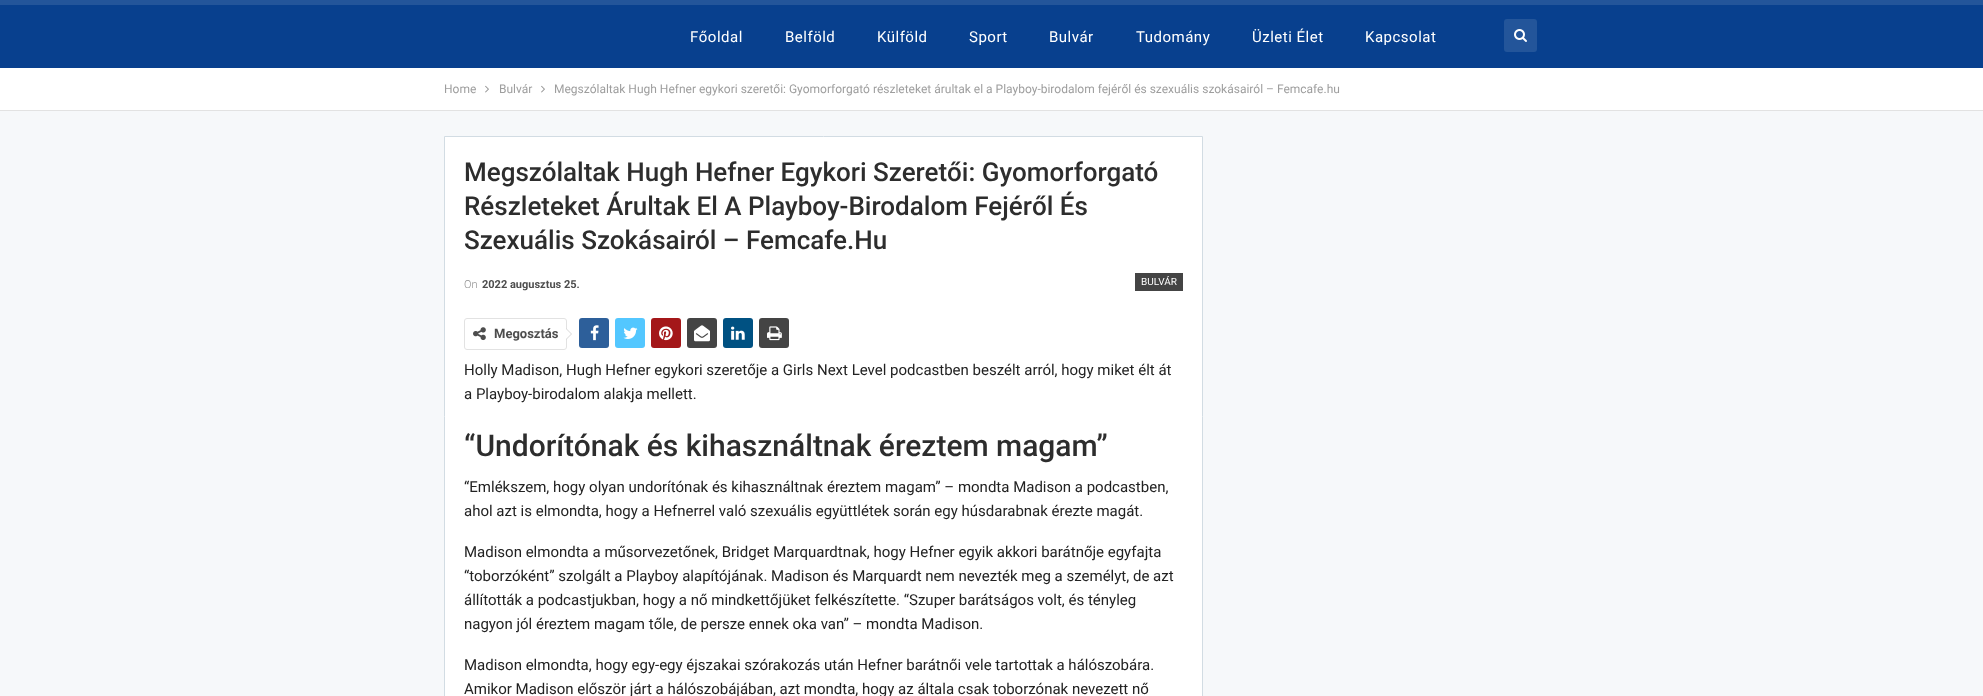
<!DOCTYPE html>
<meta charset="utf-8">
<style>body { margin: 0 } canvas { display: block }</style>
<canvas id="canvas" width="1983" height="696"></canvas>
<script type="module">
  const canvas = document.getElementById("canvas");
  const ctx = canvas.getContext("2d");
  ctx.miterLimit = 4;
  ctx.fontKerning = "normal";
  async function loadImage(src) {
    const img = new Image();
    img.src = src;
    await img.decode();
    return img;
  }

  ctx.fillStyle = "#f6f8fa";
  ctx.fillRect(0, 0, 1983, 696);
  ctx.fillStyle = "#08408e";
  ctx.fillRect(0, 5, 1983, 63);
  ctx.fillStyle = "#23559a";
  ctx.fillRect(0, 0, 1983, 5);
  ctx.letterSpacing = "0.5px";
  ctx.font = "15px Roboto";
  ctx.fillStyle = "#ffffff";
  ctx.fillText("Főoldal", 690, 42);
  ctx.fillText("Belföld", 785, 42);
  ctx.fillText("Külföld", 877, 42);
  ctx.fillText("Sport", 969, 42);
  ctx.fillText("Bulvár", 1049, 42);
  ctx.fillText("Tudomány", 1136, 42);
  ctx.fillText("Üzleti Élet", 1252, 42);
  ctx.fillText("Kapcsolat", 1365, 42);
  ctx.fillStyle = "#23559a";
  ctx.beginPath();
  ctx.roundRect(1504, 19, 33, 33, 3);
  ctx.fill();
  ctx.drawImage(await loadImage("img1.png"), 1514, 29, 13, 13);
  ctx.fillStyle = "#ffffff";
  ctx.fillRect(0, 68, 1983, 42);
  ctx.fillStyle = "#e2e2e2";
  ctx.fillRect(0, 110, 1983, 1);
  ctx.letterSpacing = "0px";
  ctx.font = "12px Roboto";
  ctx.fillStyle = "#9e9e9e";
  ctx.fillText("Home", 444, 93);
  ctx.drawImage(await loadImage("img2.png"), 485, 85, 4, 8);
  ctx.fillText("Bulvár", 499, 93);
  ctx.drawImage(await loadImage("img2.png"), 541, 85, 4, 8);
  ctx.fillText("Megszólaltak Hugh Hefner egykori szeretői: Gyomorforgató részleteket árultak el a Playboy-birodalom fejéről és szexuális szokásairól – Femcafe.hu", 554, 93);
  ctx.fillStyle = "#ffffff";
  ctx.beginPath();
  ctx.rect(444.5, 136.5, 758, 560);
  ctx.fill();
  ctx.strokeStyle = "#d2dce3";
  ctx.stroke();
  ctx.font = "500 26px Roboto";
  ctx.fillStyle = "#2d2d2d";
  ctx.fillText("Megszólaltak Hugh Hefner Egykori Szeretői: Gyomorforgató", 464, 181);
  ctx.fillText("Részleteket Árultak El A Playboy-Birodalom Fejéről És", 464, 215);
  ctx.fillText("Szexuális Szokásairól – Femcafe.Hu", 464, 249);
  ctx.font = "300 11px Roboto";
  ctx.fillStyle = "#8f8f8f";
  ctx.fillText("On", 464, 288);
  ctx.font = "bold 11px Roboto";
  ctx.fillStyle = "#4d4d4d";
  ctx.fillText("2022 augusztus 25.", 482, 288);
  ctx.fillStyle = "#444444";
  ctx.fillRect(1135, 273, 48, 18);
  ctx.font = "10px Roboto";
  ctx.fillStyle = "#ffffff";
  ctx.fillText("BULVÁR", 1141, 285);
  ctx.beginPath();
  ctx.roundRect(464.5, 318.5, 102, 31, 2.5);
  ctx.strokeStyle = "#e2e2e2";
  ctx.stroke();
  ctx.drawImage(await loadImage("img3.png"), 473, 327, 13, 14);
  ctx.font = "bold 13px Roboto";
  ctx.fillStyle = "#4d4d4d";
  ctx.fillText("Megosztás", 494, 338);
  ctx.fillStyle = "#d7d7d7";
  ctx.beginPath();
  ctx.moveTo(566, 340);
  ctx.lineTo(566, 328);
  ctx.lineTo(572, 334);
  ctx.closePath();
  ctx.fill();
  ctx.fillStyle = "#ffffff";
  ctx.beginPath();
  ctx.moveTo(566, 339);
  ctx.lineTo(566, 329);
  ctx.lineTo(571, 334);
  ctx.closePath();
  ctx.fill();
  ctx.fillStyle = "#2d5f9a";
  ctx.beginPath();
  ctx.roundRect(579, 318, 30, 30, 3);
  ctx.fill();
  ctx.drawImage(await loadImage("img4.png"), 590, 325, 9, 16);
  ctx.fillStyle = "#53c7ff";
  ctx.beginPath();
  ctx.roundRect(615, 318, 30, 30, 3);
  ctx.fill();
  ctx.drawImage(await loadImage("img5.png"), 623, 327, 15, 12);
  ctx.fillStyle = "#a41719";
  ctx.beginPath();
  ctx.roundRect(651, 318, 30, 30, 3);
  ctx.fill();
  ctx.drawImage(await loadImage("img6.png"), 659, 326, 14, 15);
  ctx.fillStyle = "#444444";
  ctx.beginPath();
  ctx.roundRect(687, 318, 30, 30, 3);
  ctx.fill();
  ctx.drawImage(await loadImage("img7.png"), 694, 325, 16, 17);
  ctx.fillStyle = "#005182";
  ctx.beginPath();
  ctx.roundRect(723, 318, 30, 30, 3);
  ctx.fill();
  ctx.drawImage(await loadImage("img8.png"), 731, 326, 14, 14);
  ctx.fillStyle = "#444444";
  ctx.beginPath();
  ctx.roundRect(759, 318, 30, 30, 3);
  ctx.fill();
  ctx.drawImage(await loadImage("img9.png"), 767, 326, 15, 15);
  ctx.font = "15px Roboto";
  ctx.fillStyle = "#222222";
  ctx.fillText("Holly Madison, Hugh Hefner egykori szeretője a Girls Next Level podcastben beszélt arról, hogy miket élt át", 464, 375);
  ctx.fillText("a Playboy-birodalom alakja mellett.", 464, 399);
  ctx.font = "500 30px Roboto";
  ctx.fillStyle = "#2d2d2d";
  ctx.fillText("“Undorítónak és kihasználtnak éreztem magam”", 464, 456);
  ctx.font = "15px Roboto";
  ctx.fillStyle = "#222222";
  ctx.fillText("“Emlékszem, hogy olyan undorítónak és kihasználtnak éreztem magam” – mondta Madison a podcastben,", 464, 492);
  ctx.fillText("ahol azt is elmondta, hogy a Hefnerrel való szexuális együttlétek során egy húsdarabnak érezte magát.", 464, 516);
  ctx.fillText("Madison elmondta a műsorvezetőnek, Bridget Marquardtnak, hogy Hefner egyik akkori barátnője egyfajta", 464, 557);
  ctx.fillText("“toborzóként” szolgált a Playboy alapítójának. Madison és Marquardt nem nevezték meg a személyt, de azt", 464, 581);
  ctx.fillText("állították a podcastjukban, hogy a nő mindkettőjüket felkészítette. “Szuper barátságos volt, és tényleg", 464, 605);
  ctx.fillText("nagyon jól éreztem magam tőle, de persze ennek oka van” – mondta Madison.", 464, 629);
  ctx.fillText("Madison elmondta, hogy egy-egy éjszakai szórakozás után Hefner barátnői vele tartottak a hálószobára.", 464, 670);
  ctx.fillText("Amikor Madison először járt a hálószobájában, azt mondta, hogy az általa csak toborzónak nevezett nő", 464, 694);
</script>
